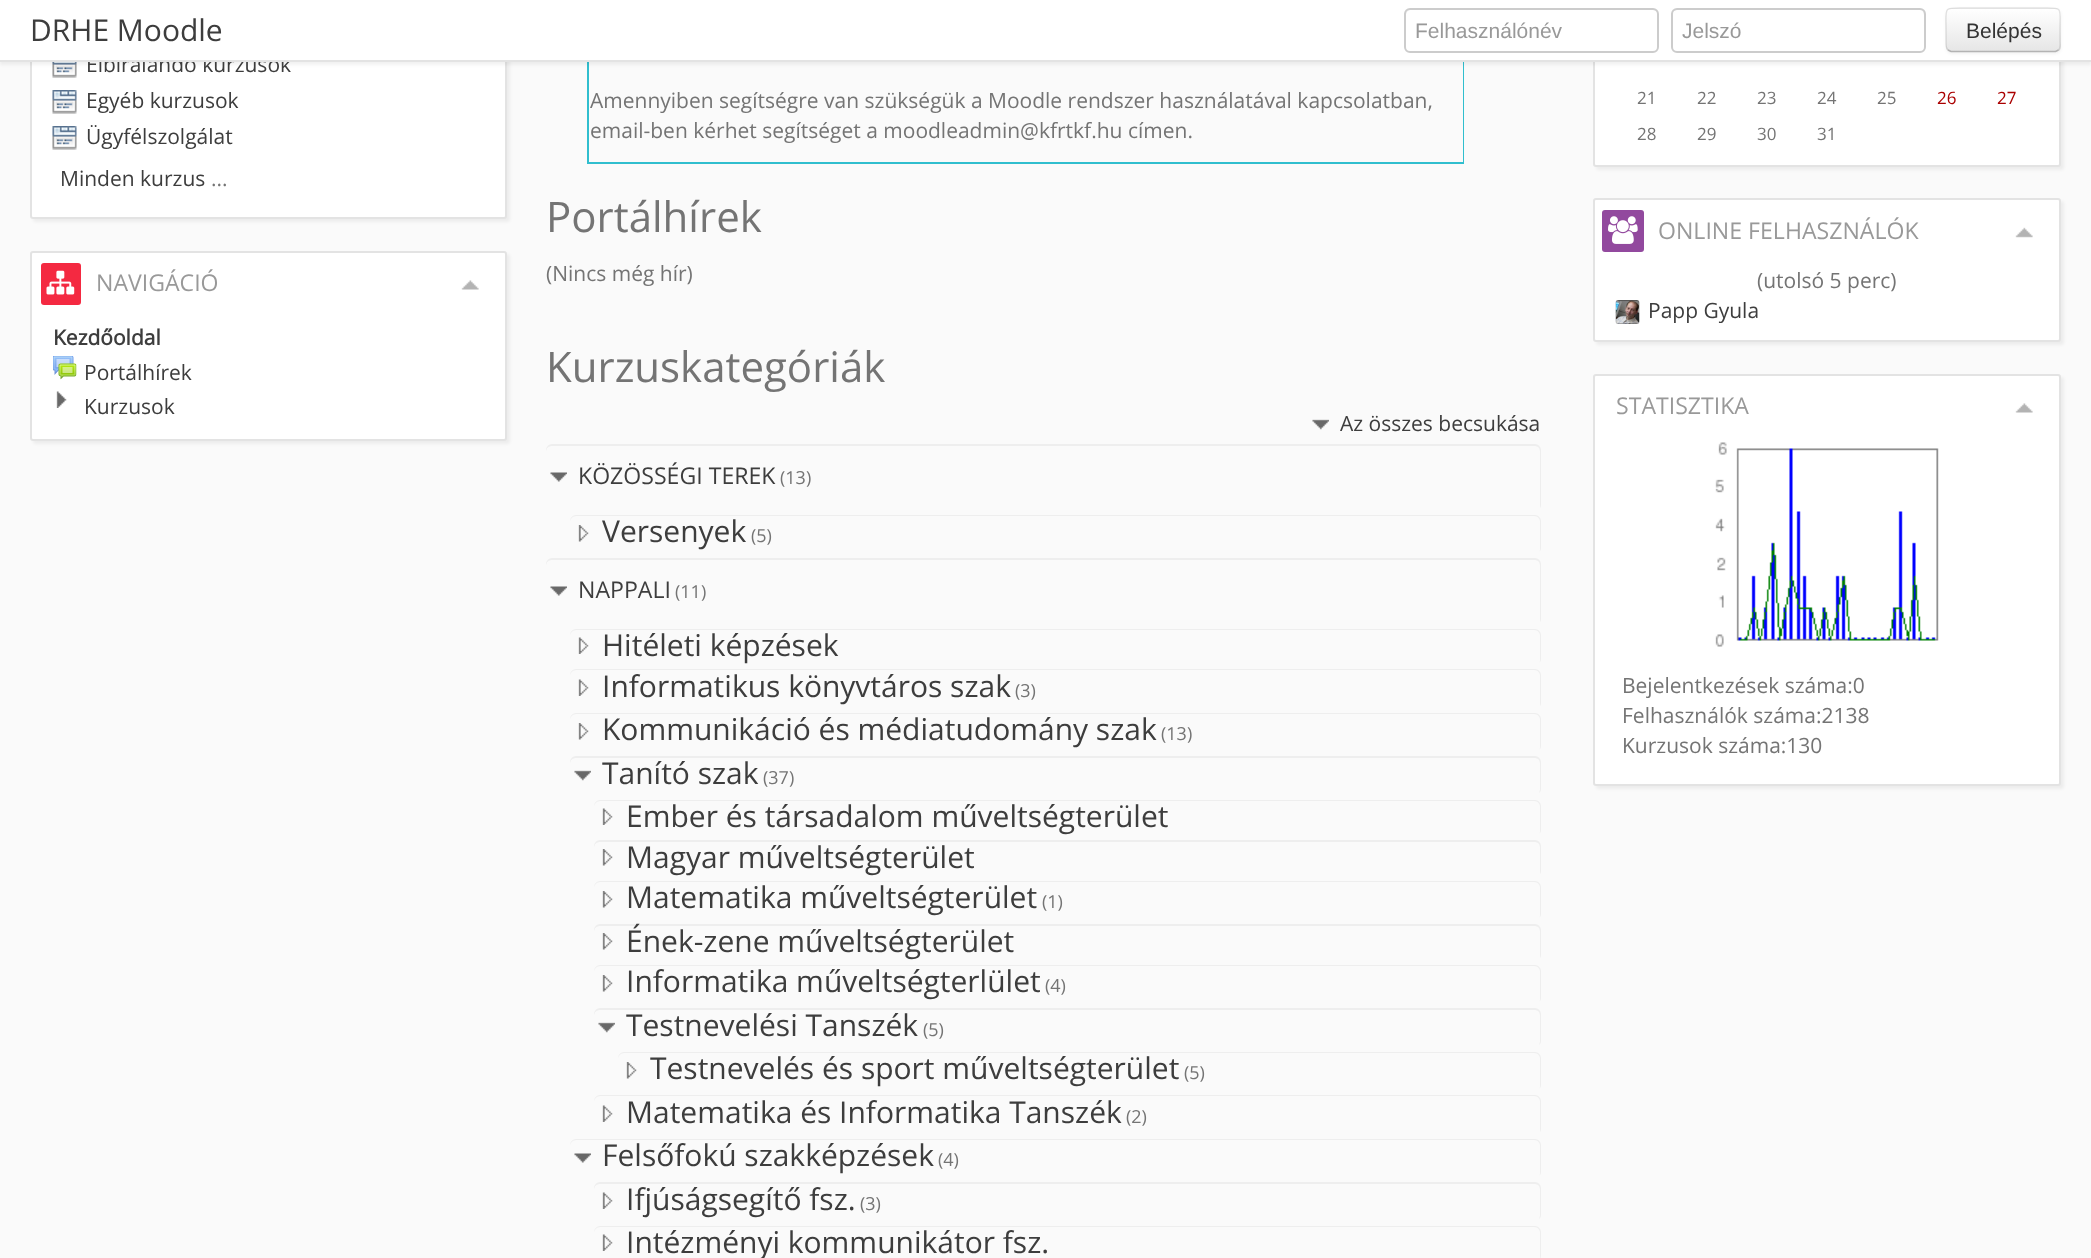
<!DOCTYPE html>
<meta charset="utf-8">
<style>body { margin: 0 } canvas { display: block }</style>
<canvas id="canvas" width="2091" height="1258"></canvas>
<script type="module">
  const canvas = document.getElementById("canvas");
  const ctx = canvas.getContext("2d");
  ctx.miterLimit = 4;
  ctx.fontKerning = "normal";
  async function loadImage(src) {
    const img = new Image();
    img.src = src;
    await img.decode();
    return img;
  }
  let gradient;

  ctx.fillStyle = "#fafafa";
  ctx.fillRect(0, 0, 2091, 1258);
  ctx.fillStyle = "rgba(0, 0, 0, 0.05)";
  ctx.filter = "blur(1.5px)";
  ctx.beginPath();
  ctx.roundRect(33, -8, 477, 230, 3);
  ctx.fill();
  ctx.filter = "none";
  ctx.fillStyle = "#ffffff";
  ctx.beginPath();
  ctx.roundRect(31, -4, 475, 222, 2);
  ctx.fill();
  ctx.strokeStyle = "#e3e3e3";
  ctx.lineWidth = 2;
  ctx.stroke();
  ctx.drawImage(await loadImage("img1.png"), 52, 62, 25, 16);
  ctx.fillStyle = "#30bece";
  ctx.fillRect(1463, 62, 1, 102);
  ctx.fillRect(587, 162, 877, 2);
  ctx.fillRect(587, 62, 2, 102);
  ctx.fillStyle = "rgba(0, 0, 0, 0.05)";
  ctx.filter = "blur(1.5px)";
  ctx.beginPath();
  ctx.roundRect(1596, -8, 468, 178, 3);
  ctx.fill();
  ctx.filter = "none";
  ctx.fillStyle = "#ffffff";
  ctx.beginPath();
  ctx.roundRect(1594, -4, 466, 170, 2);
  ctx.fill();
  ctx.stroke();
  ctx.fillStyle = "rgba(0, 0, 0, 0.05)";
  ctx.filter = "blur(1.5px)";
  ctx.beginPath();
  ctx.rect(0, 3, 2091, 62);
  ctx.fill();
  ctx.filter = "none";
  ctx.font = "21px Open Sans";
  ctx.fillStyle = "#3d3d3d";
  ctx.fillText("Elbírálandó kurzusok", 86, 72);
  ctx.fillStyle = "#ffffff";
  ctx.fillRect(0, 0, 2091, 60);
  ctx.fillStyle = "#e3e3e3";
  ctx.fillRect(0, 60, 2091, 2);
  ctx.font = "30px Open Sans";
  ctx.fillStyle = "#3d3d3d";
  ctx.fillText("DRHE Moodle", 30, 41);
  ctx.fillStyle = "#ececec";
  ctx.beginPath();
  ctx.moveTo(1410, 10);
  ctx.lineTo(1653, 10);
  ctx.bezierCurveTo(1655, 10, 1658, 13, 1658, 15);
  ctx.lineTo(1658, 14);
  ctx.bezierCurveTo(1658, 11, 1656, 9, 1653, 9);
  ctx.lineTo(1411, 9);
  ctx.bezierCurveTo(1408, 9, 1406, 11, 1406, 14);
  ctx.lineTo(1406, 15);
  ctx.bezierCurveTo(1406, 13, 1408, 10, 1410, 10);
  ctx.closePath();
  ctx.fill();
  ctx.beginPath();
  ctx.roundRect(1405, 9, 253, 43, 5);
  ctx.strokeStyle = "#cccccc";
  ctx.stroke();
  ctx.font = "21px Liberation Sans";
  ctx.fillStyle = "#999999";
  ctx.fillText("Felhasználónév", 1415, 38);
  ctx.fillStyle = "#ececec";
  ctx.beginPath();
  ctx.moveTo(1677, 10);
  ctx.lineTo(1920, 10);
  ctx.bezierCurveTo(1926, 10, 1924, 24, 1924, 26);
  ctx.lineTo(1924, 49);
  ctx.bezierCurveTo(1925, 48, 1925, 47, 1925, 46);
  ctx.lineTo(1925, 14);
  ctx.bezierCurveTo(1925, 11, 1923, 9, 1920, 9);
  ctx.lineTo(1678, 9);
  ctx.bezierCurveTo(1676, 9, 1674, 10, 1673, 12);
  ctx.bezierCurveTo(1674, 11, 1676, 10, 1677, 10);
  ctx.closePath();
  ctx.fill();
  ctx.beginPath();
  ctx.roundRect(1672, 9, 253, 43, 5);
  ctx.stroke();
  ctx.fillStyle = "#999999";
  ctx.fillText("Jelszó", 1682, 38);
  ctx.fillStyle = "rgba(0, 0, 0, 0.05)";
  ctx.filter = "blur(1.5px)";
  ctx.beginPath();
  ctx.roundRect(1946, 9, 115, 45, 6);
  ctx.fill();
  ctx.filter = "none";
  ctx.fillStyle = "#f5f5f5";
  ctx.beginPath();
  ctx.roundRect(1946, 8, 115, 45, 6);
  ctx.fill();
  ctx.save();
  ctx.beginPath();
  ctx.roundRect(1946, 8, 115, 45, 6);
  ctx.clip();
  gradient = ctx.createLinearGradient(2003, 9, 2003, 51);
  gradient.addColorStop(0, "#ffffff");
  gradient.addColorStop(1, "#e6e6e6");
  ctx.fillStyle = gradient;
  ctx.fillRect(1946, 9, 115, 42);
  ctx.restore();
  ctx.beginPath();
  ctx.moveTo(2058.5, 50);
  ctx.lineTo(2055.5, 51.5);
  ctx.lineTo(1951, 51.5);
  ctx.lineTo(1948, 50);
  ctx.strokeStyle = "#b3b3b3";
  ctx.lineWidth = 1.5;
  ctx.stroke();
  ctx.beginPath();
  ctx.moveTo(1948, 50);
  ctx.bezierCurveTo(1945.5, 48, 1946, 44, 1946, 41);
  ctx.lineTo(1946, 30);
  ctx.bezierCurveTo(1946, 5, 1942.5, 8, 1969, 8);
  ctx.lineTo(2038, 8);
  ctx.bezierCurveTo(2064, 8, 2060, 5, 2060, 30);
  ctx.lineTo(2060, 41);
  ctx.bezierCurveTo(2060, 44, 2061, 48, 2058.5, 50);
  ctx.strokeStyle = "rgba(0, 0, 0, 0.1)";
  ctx.stroke();
  ctx.fillStyle = "#333333";
  ctx.fillText("Belépés", 1966, 38);
  ctx.drawImage(await loadImage("img2.png"), 52, 90, 25, 24);
  ctx.font = "21px Open Sans";
  ctx.fillStyle = "#3d3d3d";
  ctx.fillText("Egyéb kurzusok", 86, 108);
  ctx.drawImage(await loadImage("img2.png"), 52, 126, 25, 24);
  ctx.fillText("Ügyfélszolgálat", 86, 144);
  ctx.fillText("Minden kurzus", 60, 186);
  ctx.fillStyle = "#747474";
  ctx.fillText("...", 211, 186);
  ctx.fillStyle = "rgba(0, 0, 0, 0.05)";
  ctx.filter = "blur(1.5px)";
  ctx.beginPath();
  ctx.roundRect(33, 254, 477, 190, 3);
  ctx.fill();
  ctx.filter = "none";
  ctx.fillStyle = "#ffffff";
  ctx.beginPath();
  ctx.roundRect(31, 252, 475, 188, 2);
  ctx.fill();
  ctx.strokeStyle = "#e3e3e3";
  ctx.lineWidth = 2;
  ctx.stroke();
  ctx.fillStyle = "#f42941";
  ctx.beginPath();
  ctx.roundRect(41, 263, 40, 42, 3);
  ctx.fill();
  ctx.drawImage(await loadImage("img3.png"), 46, 270, 29, 25);
  ctx.font = "23.1px Open Sans";
  ctx.fillStyle = "#999999";
  ctx.fillText("NAVIGÁCIÓ", 96, 291);
  ctx.drawImage(await loadImage("img4.png"), 461, 280, 18, 10);
  ctx.font = "bold 21px Open Sans";
  ctx.fillStyle = "#3d3d3d";
  ctx.fillText("Kezdőoldal", 53, 345);
  ctx.drawImage(await loadImage("img5.png"), 53, 356, 24, 24);
  ctx.font = "21px Open Sans";
  ctx.fillText("Portálhírek", 84, 380);
  ctx.drawImage(await loadImage("img6.png"), 56, 391, 11, 17);
  ctx.fillText("Kurzusok", 84, 414);
  ctx.fillStyle = "#747474";
  ctx.fillText("Amennyiben segítségre van szükségük a Moodle rendszer használatával kapcsolatban,", 590, 108);
  ctx.fillText("email-ben kérhet segítséget a moodleadmin@kfrtkf.hu címen.", 590, 138);
  ctx.font = "42px Open Sans";
  ctx.fillText("Portálhírek", 546, 232);
  ctx.font = "21px Open Sans";
  ctx.fillText("(Nincs még hír)", 546, 281);
  ctx.font = "42px Open Sans";
  ctx.fillText("Kurzuskategóriák", 546, 382);
  ctx.drawImage(await loadImage("img7.png"), 1312, 419, 17, 11);
  ctx.font = "21px Open Sans";
  ctx.fillStyle = "#3d3d3d";
  ctx.fillText("Az összes becsukása", 1340, 431);
  ctx.fillStyle = "#eeeeee";
  ctx.beginPath();
  ctx.moveTo(552, 446);
  ctx.lineTo(1534, 446);
  ctx.bezierCurveTo(1538, 446, 1540, 448, 1540, 452);
  ctx.lineTo(1540, 508);
  ctx.bezierCurveTo(1541, 507, 1541, 505, 1541, 504);
  ctx.lineTo(1541, 450);
  ctx.bezierCurveTo(1541, 447, 1538, 444, 1535, 444);
  ctx.lineTo(552, 444);
  ctx.bezierCurveTo(549, 444, 546, 447, 546, 450);
  ctx.lineTo(546, 452);
  ctx.bezierCurveTo(546, 448, 549, 446, 552, 446);
  ctx.closePath();
  ctx.fill();
  ctx.drawImage(await loadImage("img8.png"), 550, 472, 17, 10);
  ctx.font = "23.1px Open Sans";
  ctx.fillStyle = "#3d3d3d";
  ctx.fillText("KÖZÖSSÉGI TEREK", 578, 484);
  ctx.font = "18px Open Sans";
  ctx.fillStyle = "#747474";
  ctx.fillText("(13)", 780, 484);
  ctx.fillStyle = "#eeeeee";
  ctx.beginPath();
  ctx.moveTo(576, 516);
  ctx.lineTo(1534, 516);
  ctx.bezierCurveTo(1538, 516, 1540, 519, 1540, 522);
  ctx.lineTo(1540, 549);
  ctx.bezierCurveTo(1540, 550, 1540, 551, 1539, 552);
  ctx.bezierCurveTo(1540, 551, 1541, 550, 1541, 548);
  ctx.lineTo(1541, 521);
  ctx.bezierCurveTo(1541, 518, 1538, 515, 1535, 515);
  ctx.lineTo(576, 515);
  ctx.bezierCurveTo(573, 515, 570, 518, 570, 521);
  ctx.lineTo(570, 522);
  ctx.bezierCurveTo(570, 519, 573, 516, 576, 516);
  ctx.closePath();
  ctx.fill();
  ctx.drawImage(await loadImage("img9.png"), 578, 525, 11, 17);
  ctx.font = "30px Open Sans";
  ctx.fillStyle = "#3d3d3d";
  ctx.fillText("Versenyek", 602, 542);
  ctx.font = "18px Open Sans";
  ctx.fillStyle = "#747474";
  ctx.fillText("(5)", 751, 542);
  ctx.fillStyle = "#eeeeee";
  ctx.beginPath();
  ctx.moveTo(552, 560);
  ctx.lineTo(1534, 560);
  ctx.bezierCurveTo(1538, 560, 1540, 562, 1540, 566);
  ctx.lineTo(1540, 622);
  ctx.bezierCurveTo(1541, 621, 1541, 619, 1541, 618);
  ctx.lineTo(1541, 564);
  ctx.bezierCurveTo(1541, 561, 1538, 558, 1535, 558);
  ctx.lineTo(552, 558);
  ctx.bezierCurveTo(549, 558, 546, 561, 546, 564);
  ctx.lineTo(546, 566);
  ctx.bezierCurveTo(546, 562, 549, 560, 552, 560);
  ctx.closePath();
  ctx.fill();
  ctx.drawImage(await loadImage("img8.png"), 550, 586, 17, 10);
  ctx.font = "23.1px Open Sans";
  ctx.fillStyle = "#3d3d3d";
  ctx.fillText("NAPPALI", 578, 598);
  ctx.font = "18px Open Sans";
  ctx.fillStyle = "#747474";
  ctx.fillText("(11)", 675, 598);
  ctx.fillStyle = "#eeeeee";
  ctx.beginPath();
  ctx.moveTo(576, 630);
  ctx.lineTo(1534, 630);
  ctx.bezierCurveTo(1538, 630, 1540, 633, 1540, 636);
  ctx.lineTo(1540, 660);
  ctx.bezierCurveTo(1540, 661, 1540, 662, 1539, 663);
  ctx.bezierCurveTo(1540, 662, 1541, 661, 1541, 659);
  ctx.lineTo(1541, 635);
  ctx.bezierCurveTo(1541, 632, 1538, 629, 1535, 629);
  ctx.lineTo(576, 629);
  ctx.bezierCurveTo(573, 629, 570, 632, 570, 635);
  ctx.lineTo(570, 636);
  ctx.bezierCurveTo(570, 633, 573, 630, 576, 630);
  ctx.closePath();
  ctx.fill();
  ctx.drawImage(await loadImage("img10.png"), 578, 637, 11, 17);
  ctx.font = "30px Open Sans";
  ctx.fillStyle = "#3d3d3d";
  ctx.fillText("Hitéleti képzések", 602, 656);
  ctx.fillStyle = "#eeeeee";
  ctx.beginPath();
  ctx.moveTo(576, 670);
  ctx.lineTo(1534, 670);
  ctx.bezierCurveTo(1538, 670, 1540, 673, 1540, 676);
  ctx.lineTo(1540, 706);
  ctx.bezierCurveTo(1541, 705, 1541, 703, 1541, 702);
  ctx.lineTo(1541, 675);
  ctx.bezierCurveTo(1541, 672, 1538, 669, 1535, 669);
  ctx.lineTo(576, 669);
  ctx.bezierCurveTo(573, 669, 570, 672, 570, 675);
  ctx.lineTo(570, 676);
  ctx.bezierCurveTo(570, 673, 573, 670, 576, 670);
  ctx.closePath();
  ctx.fill();
  ctx.drawImage(await loadImage("img10.png"), 578, 679, 11, 17);
  ctx.fillStyle = "#3d3d3d";
  ctx.fillText("Informatikus könyvtáros szak", 602, 697);
  ctx.font = "18px Open Sans";
  ctx.fillStyle = "#747474";
  ctx.fillText("(3)", 1015, 697);
  ctx.fillStyle = "#eeeeee";
  ctx.beginPath();
  ctx.moveTo(576, 714);
  ctx.lineTo(1534, 714);
  ctx.bezierCurveTo(1538, 714, 1540, 717, 1540, 720);
  ctx.lineTo(1540, 747);
  ctx.bezierCurveTo(1540, 748, 1540, 749, 1539, 750);
  ctx.bezierCurveTo(1540, 749, 1541, 748, 1541, 746);
  ctx.lineTo(1541, 719);
  ctx.bezierCurveTo(1541, 716, 1538, 713, 1535, 713);
  ctx.lineTo(576, 713);
  ctx.bezierCurveTo(573, 713, 570, 716, 570, 719);
  ctx.lineTo(570, 720);
  ctx.bezierCurveTo(570, 717, 573, 714, 576, 714);
  ctx.closePath();
  ctx.fill();
  ctx.drawImage(await loadImage("img9.png"), 578, 723, 11, 17);
  ctx.font = "30px Open Sans";
  ctx.fillStyle = "#3d3d3d";
  ctx.fillText("Kommunikáció és médiatudomány szak", 602, 740);
  ctx.font = "18px Open Sans";
  ctx.fillStyle = "#747474";
  ctx.fillText("(13)", 1161, 740);
  ctx.fillStyle = "#eeeeee";
  ctx.beginPath();
  ctx.moveTo(576, 758);
  ctx.lineTo(1534, 758);
  ctx.bezierCurveTo(1538, 758, 1540, 760, 1540, 764);
  ctx.lineTo(1540, 790);
  ctx.lineTo(1539, 793);
  ctx.bezierCurveTo(1540, 792, 1541, 791, 1541, 789);
  ctx.lineTo(1541, 762);
  ctx.bezierCurveTo(1541, 759, 1538, 756, 1535, 756);
  ctx.lineTo(576, 756);
  ctx.bezierCurveTo(573, 756, 570, 759, 570, 762);
  ctx.lineTo(570, 764);
  ctx.bezierCurveTo(570, 760, 573, 758, 576, 758);
  ctx.closePath();
  ctx.fill();
  ctx.drawImage(await loadImage("img7.png"), 574, 770, 17, 11);
  ctx.font = "30px Open Sans";
  ctx.fillStyle = "#3d3d3d";
  ctx.fillText("Tanító szak", 602, 784);
  ctx.font = "18px Open Sans";
  ctx.fillStyle = "#747474";
  ctx.fillText("(37)", 763, 784);
  ctx.fillStyle = "#eeeeee";
  ctx.beginPath();
  ctx.moveTo(600, 801);
  ctx.lineTo(1534, 801);
  ctx.bezierCurveTo(1538, 801, 1540, 804, 1540, 807);
  ctx.lineTo(1540, 831);
  ctx.bezierCurveTo(1540, 832, 1540, 833, 1539, 834);
  ctx.bezierCurveTo(1540, 833, 1541, 832, 1541, 830);
  ctx.lineTo(1541, 806);
  ctx.bezierCurveTo(1541, 803, 1538, 800, 1535, 800);
  ctx.lineTo(600, 800);
  ctx.bezierCurveTo(597, 800, 594, 803, 594, 806);
  ctx.lineTo(594, 807);
  ctx.bezierCurveTo(594, 804, 597, 801, 600, 801);
  ctx.closePath();
  ctx.fill();
  ctx.drawImage(await loadImage("img10.png"), 602, 808, 11, 17);
  ctx.font = "30px Open Sans";
  ctx.fillStyle = "#3d3d3d";
  ctx.fillText("Ember és társadalom műveltségterület", 626, 827);
  ctx.fillStyle = "#eeeeee";
  ctx.beginPath();
  ctx.moveTo(600, 842);
  ctx.lineTo(1534, 842);
  ctx.bezierCurveTo(1538, 842, 1540, 844, 1540, 848);
  ctx.lineTo(1540, 874);
  ctx.bezierCurveTo(1541, 873, 1541, 871, 1541, 870);
  ctx.lineTo(1541, 846);
  ctx.bezierCurveTo(1541, 843, 1538, 840, 1535, 840);
  ctx.lineTo(600, 840);
  ctx.bezierCurveTo(597, 840, 594, 843, 594, 846);
  ctx.lineTo(594, 848);
  ctx.bezierCurveTo(594, 844, 597, 842, 600, 842);
  ctx.closePath();
  ctx.fill();
  ctx.drawImage(await loadImage("img9.png"), 602, 849, 11, 17);
  ctx.fillStyle = "#3d3d3d";
  ctx.fillText("Magyar műveltségterület", 626, 868);
  ctx.fillStyle = "#eeeeee";
  ctx.beginPath();
  ctx.moveTo(600, 882);
  ctx.lineTo(1534, 882);
  ctx.bezierCurveTo(1538, 882, 1540, 885, 1540, 888);
  ctx.lineTo(1540, 915);
  ctx.bezierCurveTo(1540, 916, 1540, 917, 1539, 918);
  ctx.bezierCurveTo(1540, 917, 1541, 916, 1541, 914);
  ctx.lineTo(1541, 887);
  ctx.bezierCurveTo(1541, 884, 1538, 881, 1535, 881);
  ctx.lineTo(600, 881);
  ctx.bezierCurveTo(597, 881, 594, 884, 594, 887);
  ctx.lineTo(594, 888);
  ctx.bezierCurveTo(594, 885, 597, 882, 600, 882);
  ctx.closePath();
  ctx.fill();
  ctx.drawImage(await loadImage("img9.png"), 602, 891, 11, 17);
  ctx.fillStyle = "#3d3d3d";
  ctx.fillText("Matematika műveltségterület", 626, 908);
  ctx.font = "18px Open Sans";
  ctx.fillStyle = "#747474";
  ctx.fillText("(1)", 1042, 908);
  ctx.fillStyle = "#eeeeee";
  ctx.beginPath();
  ctx.moveTo(600, 926);
  ctx.lineTo(1534, 926);
  ctx.bezierCurveTo(1538, 926, 1540, 928, 1540, 932);
  ctx.lineTo(1540, 958);
  ctx.bezierCurveTo(1541, 957, 1541, 955, 1541, 954);
  ctx.lineTo(1541, 930);
  ctx.bezierCurveTo(1541, 927, 1538, 924, 1535, 924);
  ctx.lineTo(600, 924);
  ctx.bezierCurveTo(597, 924, 594, 927, 594, 930);
  ctx.lineTo(594, 932);
  ctx.bezierCurveTo(594, 928, 597, 926, 600, 926);
  ctx.closePath();
  ctx.fill();
  ctx.drawImage(await loadImage("img9.png"), 602, 933, 11, 17);
  ctx.font = "30px Open Sans";
  ctx.fillStyle = "#3d3d3d";
  ctx.fillText("Ének-zene műveltségterület", 626, 952);
  ctx.fillStyle = "#eeeeee";
  ctx.beginPath();
  ctx.moveTo(600, 966);
  ctx.lineTo(1534, 966);
  ctx.bezierCurveTo(1538, 966, 1540, 969, 1540, 972);
  ctx.lineTo(1540, 999);
  ctx.bezierCurveTo(1540, 1000, 1540, 1001, 1539, 1002);
  ctx.bezierCurveTo(1540, 1001, 1541, 1000, 1541, 998);
  ctx.lineTo(1541, 971);
  ctx.bezierCurveTo(1541, 968, 1538, 965, 1535, 965);
  ctx.lineTo(600, 965);
  ctx.bezierCurveTo(597, 965, 594, 968, 594, 971);
  ctx.lineTo(594, 972);
  ctx.bezierCurveTo(594, 969, 597, 966, 600, 966);
  ctx.closePath();
  ctx.fill();
  ctx.drawImage(await loadImage("img9.png"), 602, 975, 11, 17);
  ctx.fillStyle = "#3d3d3d";
  ctx.fillText("Informatika műveltségterlület", 626, 992);
  ctx.font = "18px Open Sans";
  ctx.fillStyle = "#747474";
  ctx.fillText("(4)", 1045, 992);
  ctx.fillStyle = "#eeeeee";
  ctx.beginPath();
  ctx.moveTo(600, 1010);
  ctx.lineTo(1534, 1010);
  ctx.bezierCurveTo(1538, 1010, 1540, 1012, 1540, 1016);
  ctx.lineTo(1540, 1042);
  ctx.lineTo(1539, 1045);
  ctx.bezierCurveTo(1540, 1044, 1541, 1043, 1541, 1041);
  ctx.lineTo(1541, 1014);
  ctx.bezierCurveTo(1541, 1011, 1538, 1008, 1535, 1008);
  ctx.lineTo(600, 1008);
  ctx.bezierCurveTo(597, 1008, 594, 1011, 594, 1014);
  ctx.lineTo(594, 1016);
  ctx.bezierCurveTo(594, 1012, 597, 1010, 600, 1010);
  ctx.closePath();
  ctx.fill();
  ctx.drawImage(await loadImage("img7.png"), 598, 1022, 17, 11);
  ctx.font = "30px Open Sans";
  ctx.fillStyle = "#3d3d3d";
  ctx.fillText("Testnevelési Tanszék", 626, 1036);
  ctx.font = "18px Open Sans";
  ctx.fillStyle = "#747474";
  ctx.fillText("(5)", 923, 1036);
  ctx.fillStyle = "#eeeeee";
  ctx.beginPath();
  ctx.moveTo(624, 1053);
  ctx.lineTo(1534, 1053);
  ctx.bezierCurveTo(1538, 1053, 1540, 1056, 1540, 1059);
  ctx.lineTo(1540, 1086);
  ctx.bezierCurveTo(1540, 1087, 1540, 1088, 1539, 1089);
  ctx.bezierCurveTo(1540, 1088, 1541, 1087, 1541, 1085);
  ctx.lineTo(1541, 1058);
  ctx.bezierCurveTo(1541, 1055, 1538, 1052, 1535, 1052);
  ctx.lineTo(624, 1052);
  ctx.bezierCurveTo(621, 1052, 618, 1055, 618, 1058);
  ctx.lineTo(618, 1059);
  ctx.bezierCurveTo(618, 1056, 621, 1053, 624, 1053);
  ctx.closePath();
  ctx.fill();
  ctx.drawImage(await loadImage("img9.png"), 626, 1062, 11, 17);
  ctx.font = "30px Open Sans";
  ctx.fillStyle = "#3d3d3d";
  ctx.fillText("Testnevelés és sport műveltségterület", 650, 1079);
  ctx.font = "18px Open Sans";
  ctx.fillStyle = "#747474";
  ctx.fillText("(5)", 1184, 1079);
  ctx.fillStyle = "#eeeeee";
  ctx.beginPath();
  ctx.moveTo(600, 1096);
  ctx.lineTo(1534, 1096);
  ctx.bezierCurveTo(1538, 1096, 1540, 1099, 1540, 1102);
  ctx.lineTo(1540, 1132);
  ctx.bezierCurveTo(1541, 1131, 1541, 1129, 1541, 1128);
  ctx.lineTo(1541, 1101);
  ctx.bezierCurveTo(1541, 1098, 1538, 1095, 1535, 1095);
  ctx.lineTo(600, 1095);
  ctx.bezierCurveTo(597, 1095, 594, 1098, 594, 1101);
  ctx.lineTo(594, 1102);
  ctx.bezierCurveTo(594, 1099, 597, 1096, 600, 1096);
  ctx.closePath();
  ctx.fill();
  ctx.drawImage(await loadImage("img10.png"), 602, 1105, 11, 17);
  ctx.font = "30px Open Sans";
  ctx.fillStyle = "#3d3d3d";
  ctx.fillText("Matematika és Informatika Tanszék", 626, 1123);
  ctx.font = "18px Open Sans";
  ctx.fillStyle = "#747474";
  ctx.fillText("(2)", 1126, 1123);
  ctx.fillStyle = "#eeeeee";
  ctx.beginPath();
  ctx.moveTo(576, 1140);
  ctx.lineTo(1534, 1140);
  ctx.bezierCurveTo(1538, 1140, 1540, 1143, 1540, 1146);
  ctx.lineTo(1540, 1173);
  ctx.bezierCurveTo(1540, 1174, 1540, 1175, 1539, 1176);
  ctx.bezierCurveTo(1540, 1175, 1541, 1174, 1541, 1172);
  ctx.lineTo(1541, 1145);
  ctx.bezierCurveTo(1541, 1142, 1538, 1139, 1535, 1139);
  ctx.lineTo(576, 1139);
  ctx.bezierCurveTo(573, 1139, 570, 1142, 570, 1145);
  ctx.lineTo(570, 1146);
  ctx.bezierCurveTo(570, 1143, 573, 1140, 576, 1140);
  ctx.closePath();
  ctx.fill();
  ctx.drawImage(await loadImage("img8.png"), 574, 1153, 17, 10);
  ctx.font = "30px Open Sans";
  ctx.fillStyle = "#3d3d3d";
  ctx.fillText("Felsőfokú szakképzések", 602, 1166);
  ctx.font = "18px Open Sans";
  ctx.fillStyle = "#747474";
  ctx.fillText("(4)", 938, 1166);
  ctx.fillStyle = "#eeeeee";
  ctx.beginPath();
  ctx.moveTo(600, 1184);
  ctx.lineTo(1534, 1184);
  ctx.bezierCurveTo(1538, 1184, 1540, 1186, 1540, 1190);
  ctx.lineTo(1540, 1216);
  ctx.lineTo(1539, 1219);
  ctx.bezierCurveTo(1540, 1218, 1541, 1217, 1541, 1215);
  ctx.lineTo(1541, 1188);
  ctx.bezierCurveTo(1541, 1185, 1538, 1182, 1535, 1182);
  ctx.lineTo(600, 1182);
  ctx.bezierCurveTo(597, 1182, 594, 1185, 594, 1188);
  ctx.lineTo(594, 1190);
  ctx.bezierCurveTo(594, 1186, 597, 1184, 600, 1184);
  ctx.closePath();
  ctx.fill();
  ctx.drawImage(await loadImage("img10.png"), 602, 1192, 11, 17);
  ctx.font = "30px Open Sans";
  ctx.fillStyle = "#3d3d3d";
  ctx.fillText("Ifjúságsegítő fsz.", 626, 1210);
  ctx.font = "18px Open Sans";
  ctx.fillStyle = "#747474";
  ctx.fillText("(3)", 860, 1210);
  ctx.fillStyle = "#eeeeee";
  ctx.beginPath();
  ctx.moveTo(600, 1227);
  ctx.lineTo(1534, 1227);
  ctx.bezierCurveTo(1538, 1227, 1540, 1230, 1540, 1233);
  ctx.lineTo(1540, 1257);
  ctx.bezierCurveTo(1540, 1258, 1540, 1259, 1539, 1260);
  ctx.bezierCurveTo(1540, 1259, 1541, 1258, 1541, 1256);
  ctx.lineTo(1541, 1232);
  ctx.bezierCurveTo(1541, 1229, 1538, 1226, 1535, 1226);
  ctx.lineTo(600, 1226);
  ctx.bezierCurveTo(597, 1226, 594, 1229, 594, 1232);
  ctx.lineTo(594, 1233);
  ctx.bezierCurveTo(594, 1230, 597, 1227, 600, 1227);
  ctx.closePath();
  ctx.fill();
  ctx.drawImage(await loadImage("img10.png"), 602, 1234, 11, 17);
  ctx.font = "30px Open Sans";
  ctx.fillStyle = "#3d3d3d";
  ctx.fillText("Intézményi kommunikátor fsz.", 626, 1253);
  ctx.font = "17px Open Sans";
  ctx.fillStyle = "#747474";
  ctx.fillText("21", 1637, 104);
  ctx.fillText("22", 1697, 104);
  ctx.fillText("23", 1757, 104);
  ctx.fillText("24", 1817, 104);
  ctx.fillText("25", 1877, 104);
  ctx.fillStyle = "#aa0000";
  ctx.fillText("26", 1937, 104);
  ctx.fillText("27", 1997, 104);
  ctx.fillStyle = "#747474";
  ctx.fillText("28", 1637, 140);
  ctx.fillText("29", 1697, 140);
  ctx.fillText("30", 1757, 140);
  ctx.fillText("31", 1817, 140);
  ctx.fillStyle = "rgba(0, 0, 0, 0.05)";
  ctx.filter = "blur(1.5px)";
  ctx.beginPath();
  ctx.roundRect(1596, 201, 468, 144, 3);
  ctx.fill();
  ctx.filter = "none";
  ctx.fillStyle = "#ffffff";
  ctx.beginPath();
  ctx.roundRect(1594, 199, 466, 142, 2);
  ctx.fill();
  ctx.stroke();
  ctx.fillStyle = "#92499e";
  ctx.beginPath();
  ctx.roundRect(1602, 210, 42, 42, 3);
  ctx.fill();
  ctx.drawImage(await loadImage("img11.png"), 1608, 216, 30, 28);
  ctx.font = "23.1px Open Sans";
  ctx.fillStyle = "#999999";
  ctx.fillText("ONLINE FELHASZNÁLÓK", 1658, 239);
  ctx.drawImage(await loadImage("img12.png"), 2015, 227, 18, 11);
  ctx.font = "21px Open Sans";
  ctx.fillStyle = "#747474";
  ctx.fillText("(utolsó 5 perc)", 1757, 288);
  ctx.drawImage(await loadImage("img13.png"), 1615, 300, 25, 24);
  ctx.fillStyle = "#3d3d3d";
  ctx.fillText("Papp Gyula", 1648, 318);
  ctx.fillStyle = "rgba(0, 0, 0, 0.05)";
  ctx.filter = "blur(1.5px)";
  ctx.beginPath();
  ctx.roundRect(1596, 377, 468, 412, 3);
  ctx.fill();
  ctx.filter = "none";
  ctx.fillStyle = "#ffffff";
  ctx.beginPath();
  ctx.roundRect(1594, 375, 466, 410, 2);
  ctx.fill();
  ctx.stroke();
  ctx.font = "23.1px Open Sans";
  ctx.fillStyle = "#999999";
  ctx.fillText("STATISZTIKA", 1616, 414);
  ctx.drawImage(await loadImage("img4.png"), 2015, 403, 18, 10);
  ctx.drawImage(await loadImage("img14.png"), 1715, 442, 224, 205);
  ctx.font = "21px Open Sans";
  ctx.fillStyle = "#747474";
  ctx.fillText("Bejelentkezések száma:0", 1622, 693);
  ctx.fillText("Felhasználók száma:2138", 1622, 723);
  ctx.fillText("Kurzusok száma:130", 1622, 753);
</script>
